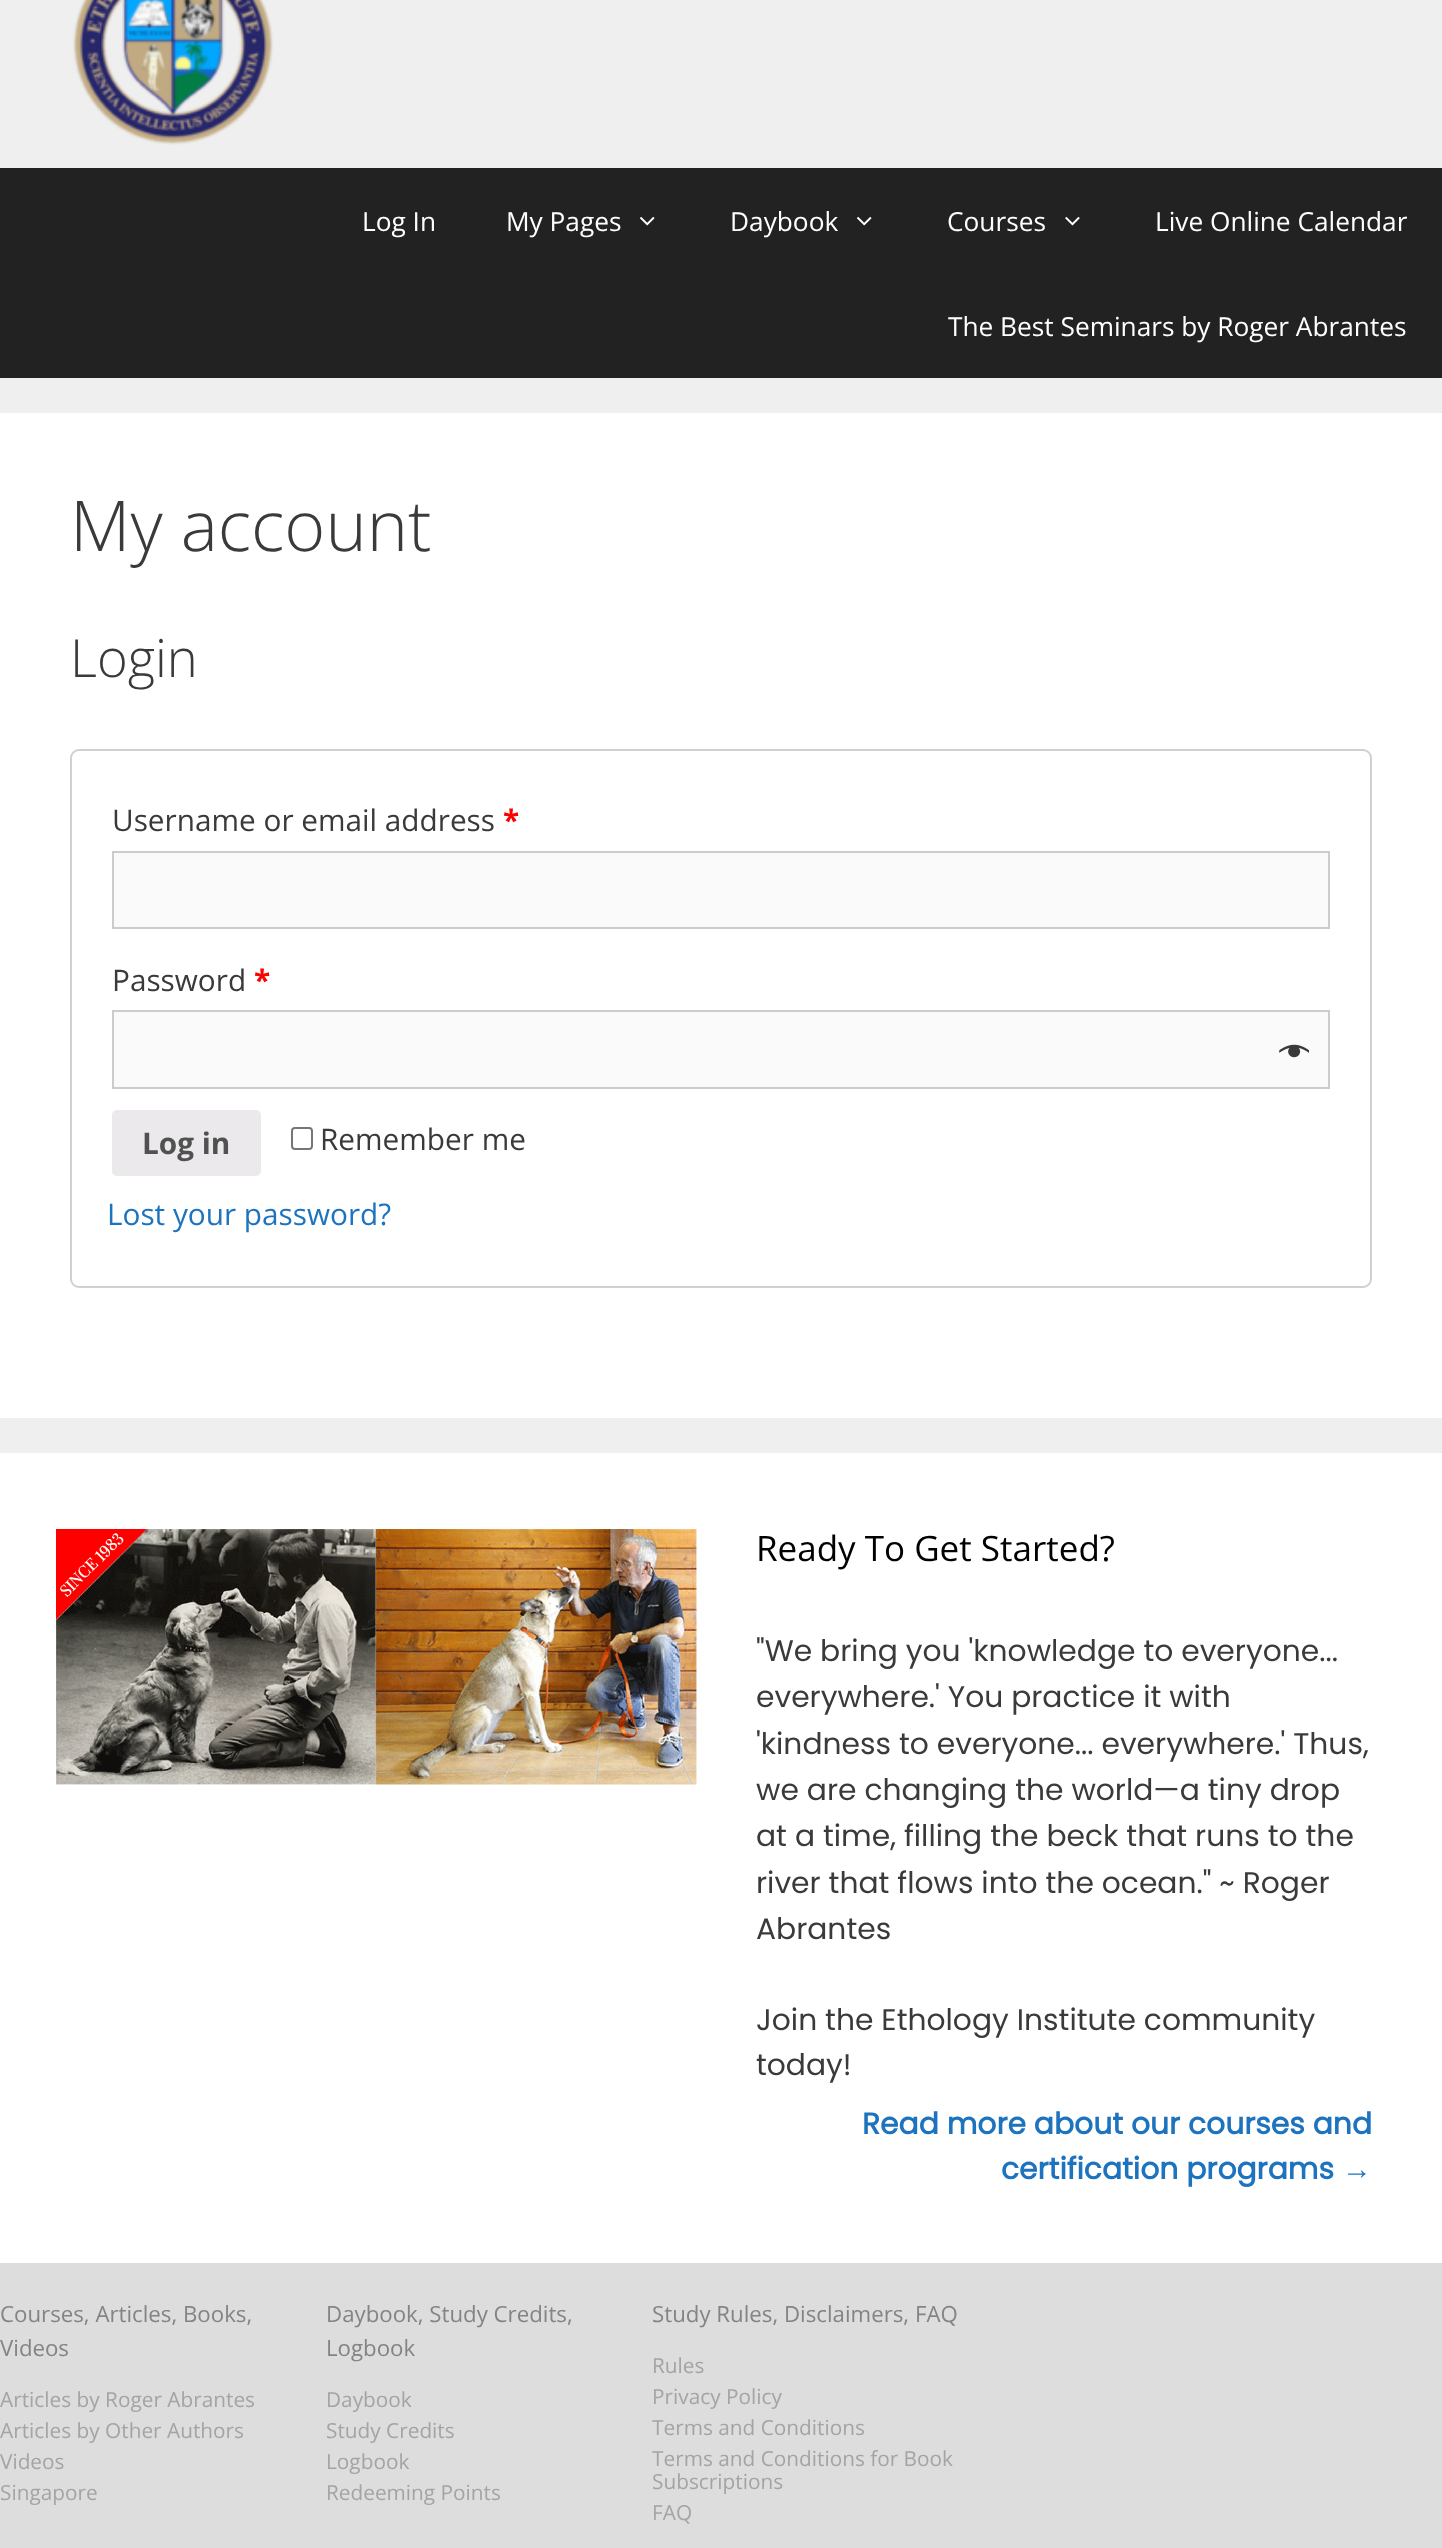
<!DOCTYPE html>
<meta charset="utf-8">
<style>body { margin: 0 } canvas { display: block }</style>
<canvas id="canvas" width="1442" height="2548"></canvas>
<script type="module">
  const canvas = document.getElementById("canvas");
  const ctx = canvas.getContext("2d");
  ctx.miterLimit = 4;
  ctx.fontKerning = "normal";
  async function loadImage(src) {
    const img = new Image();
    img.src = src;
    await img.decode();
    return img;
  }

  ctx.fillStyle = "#efefef";
  ctx.fillRect(0, 0, 1442, 2548);
  ctx.drawImage(await loadImage("img1.png"), 73, 0, 201, 145);
  ctx.fillStyle = "#222222";
  ctx.fillRect(0, 168, 1442, 210);
  ctx.font = "26.25px Open Sans";
  ctx.fillStyle = "#ffffff";
  ctx.fillText("Log In", 362, 231);
  ctx.fillText("My Pages", 506, 231);
  ctx.drawImage(await loadImage("img2.png"), 640, 216, 15, 10);
  ctx.fillText("Daybook", 730, 231);
  ctx.drawImage(await loadImage("img2.png"), 857, 216, 15, 10);
  ctx.fillText("Courses", 947, 231);
  ctx.drawImage(await loadImage("img3.png"), 1065, 216, 15, 10);
  ctx.fillText("Live Online Calendar", 1155, 231);
  ctx.fillText("The Best Seminars by Roger Abrantes", 948, 336);
  ctx.fillRect(0, 413, 1442, 1005);
  ctx.font = "300 70px Open Sans";
  ctx.fillStyle = "#3a3a3a";
  ctx.fillText("My account", 70, 551);
  ctx.font = "300 52.5px Open Sans";
  ctx.fillText("Login", 70, 677);
  ctx.beginPath();
  ctx.roundRect(71, 750, 1300, 537, 8);
  ctx.strokeStyle = "#d3ced2";
  ctx.lineWidth = 2;
  ctx.stroke();
  ctx.font = "29.75px Open Sans";
  ctx.fillText("Username or email address", 112, 831);
  ctx.font = "bold 29.75px Open Sans";
  ctx.fillStyle = "#ff0000";
  ctx.fillText("*", 503, 831);
  ctx.fillStyle = "#fafafa";
  ctx.beginPath();
  ctx.rect(113, 852, 1216, 76);
  ctx.fill();
  ctx.strokeStyle = "#cccccc";
  ctx.stroke();
  ctx.font = "29.75px Open Sans";
  ctx.fillStyle = "#3a3a3a";
  ctx.fillText("Password", 112, 991);
  ctx.font = "bold 29.75px Open Sans";
  ctx.fillStyle = "#ff0000";
  ctx.fillText("*", 254, 991);
  ctx.fillStyle = "#fafafa";
  ctx.beginPath();
  ctx.rect(113, 1011, 1216, 77);
  ctx.fill();
  ctx.stroke();
  ctx.drawImage(await loadImage("img4.png"), 1279, 1044, 30, 14);
  ctx.fillStyle = "#ebe9eb";
  ctx.beginPath();
  ctx.roundRect(112, 1110, 149, 66, 5);
  ctx.fill();
  ctx.fillStyle = "#515151";
  ctx.fillText("Log in", 142, 1154);
  ctx.beginPath();
  ctx.roundRect(292, 1128, 20, 21, 3);
  ctx.strokeStyle = "#767676";
  ctx.stroke();
  ctx.font = "29.75px Open Sans";
  ctx.fillStyle = "#3a3a3a";
  ctx.fillText("Remember me", 320, 1150);
  ctx.fillStyle = "#1e73be";
  ctx.fillText("Lost your password?", 107, 1225);
  ctx.fillStyle = "#ffffff";
  ctx.fillRect(0, 1453, 1442, 810);
  ctx.drawImage(await loadImage("img5.png"), 56, 1529, 641, 256);
  ctx.font = "35px Open Sans";
  ctx.fillStyle = "#000000";
  ctx.fillText("Ready To Get Started?", 756, 1561);
  ctx.font = "29.75px Poppins";
  ctx.fillStyle = "#3a3a3a";
  ctx.fillText("\"We bring you 'knowledge to everyone...", 756, 1661);
  ctx.fillText("everywhere.' You practice it with", 756, 1707);
  ctx.fillText("'kindness to everyone... everywhere.' Thus,", 756, 1754);
  ctx.fillText("we are changing the world—a tiny drop", 756, 1800);
  ctx.fillText("at a time, filling the beck that runs to the", 756, 1846);
  ctx.fillText("river that flows into the ocean.\" ~ Roger", 756, 1893);
  ctx.fillText("Abrantes", 756, 1939);
  ctx.fillText("Join the Ethology Institute community", 756, 2030);
  ctx.fillText("today!", 756, 2075);
  ctx.font = "bold 29.75px Poppins";
  ctx.fillStyle = "#1e73be";
  ctx.fillText("Read more about our courses and", 862, 2134);
  ctx.fillText("certification programs", 1001, 2179);
  ctx.font = "bold 29.75px Liberation Serif";
  ctx.fillText("→", 1342, 2179);
  ctx.fillStyle = "#dddddd";
  ctx.fillRect(0, 2263, 1442, 285);
  ctx.font = "22.25px Open Sans";
  ctx.fillStyle = "#848484";
  ctx.fillText("Courses, Articles, Books,", 0, 2322);
  ctx.fillText("Videos", 0, 2356);
  ctx.font = "20.8px Open Sans";
  ctx.fillStyle = "#a4a4a4";
  ctx.fillText("Articles by Roger Abrantes", 0, 2407);
  ctx.fillText("Articles by Other Authors", 0, 2438);
  ctx.fillText("Videos", 0, 2469);
  ctx.fillText("Singapore", 0, 2500);
  ctx.font = "22.25px Open Sans";
  ctx.fillStyle = "#848484";
  ctx.fillText("Daybook, Study Credits,", 326, 2322);
  ctx.fillText("Logbook", 326, 2356);
  ctx.font = "20.8px Open Sans";
  ctx.fillStyle = "#a4a4a4";
  ctx.fillText("Daybook", 326, 2407);
  ctx.fillText("Study Credits", 326, 2438);
  ctx.fillText("Logbook", 326, 2469);
  ctx.fillText("Redeeming Points", 326, 2500);
  ctx.font = "22.25px Open Sans";
  ctx.fillStyle = "#848484";
  ctx.fillText("Study Rules, Disclaimers, FAQ", 652, 2322);
  ctx.font = "20.8px Open Sans";
  ctx.fillStyle = "#a4a4a4";
  ctx.fillText("Rules", 652, 2373);
  ctx.fillText("Privacy Policy", 652, 2404);
  ctx.fillText("Terms and Conditions", 652, 2435);
  ctx.fillText("Terms and Conditions for Book", 652, 2466);
  ctx.fillText("Subscriptions", 652, 2489);
  ctx.fillText("FAQ", 652, 2520);
</script>
